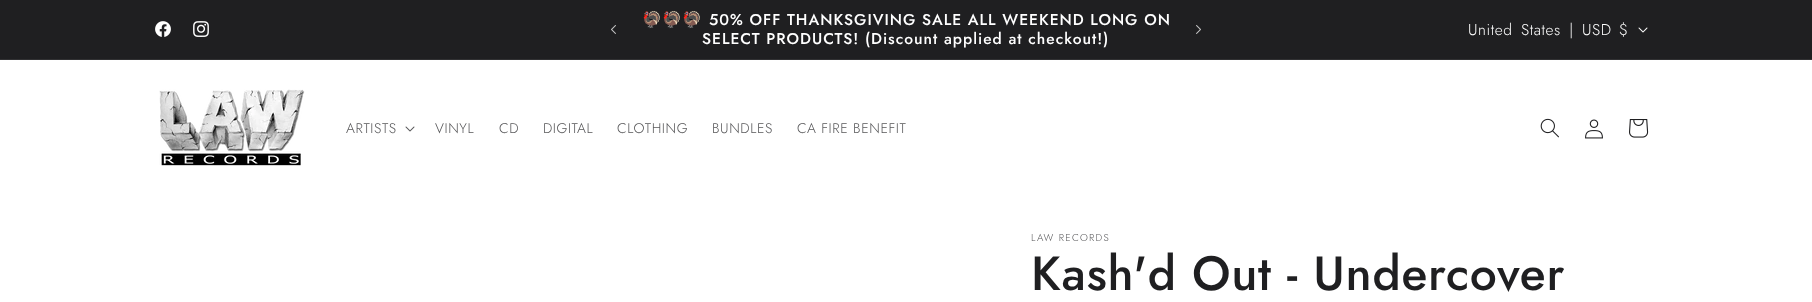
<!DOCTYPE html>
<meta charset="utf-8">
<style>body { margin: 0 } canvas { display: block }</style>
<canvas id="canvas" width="1812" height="302"></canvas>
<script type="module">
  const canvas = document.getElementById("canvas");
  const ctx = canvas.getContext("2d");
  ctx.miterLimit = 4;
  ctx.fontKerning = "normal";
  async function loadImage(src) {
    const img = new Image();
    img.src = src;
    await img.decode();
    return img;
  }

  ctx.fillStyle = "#ffffff";
  ctx.fillRect(0, 0, 1812, 302);
  ctx.fillStyle = "#1f1f21";
  ctx.fillRect(0, 0, 1812, 59);
  ctx.fillStyle = "#313133";
  ctx.fillRect(0, 59, 1812, 1);
  ctx.drawImage(await loadImage("img1.png"), 155, 21, 16, 16);
  ctx.drawImage(await loadImage("img2.png"), 193, 21, 16, 16);
  ctx.drawImage(await loadImage("img3.png"), 611, 25, 5, 9);
  ctx.letterSpacing = "1px";
  ctx.font = "15.6px Noto Color Emoji";
  ctx.fillStyle = "#ffffff";
  ctx.fillText("🦃🦃🦃", 642, 25);
  ctx.font = "500 15.6px Jost";
  ctx.fillText("50% OFF THANKSGIVING SALE ALL WEEKEND LONG ON", 709, 25);
  ctx.fillText("SELECT PRODUCTS! (Discount applied at checkout!)", 702, 44);
  ctx.drawImage(await loadImage("img4.png"), 1196, 25, 5, 9);
  ctx.letterSpacing = "0.6px";
  ctx.wordSpacing = "3px";
  ctx.font = "300 15.6px Jost";
  ctx.fillText("United States |", 1468, 35);
  ctx.wordSpacing = "0px";
  ctx.fillText("USD", 1582, 35);
  ctx.fillText("$", 1619, 35);
  ctx.drawImage(await loadImage("img5.png"), 1638, 27, 10, 6);
  ctx.drawImage(await loadImage("img6.png"), 159, 89, 146, 77);
  ctx.font = "300 14px Jost";
  ctx.fillStyle = "#575759";
  ctx.fillText("ARTISTS", 346, 133);
  ctx.drawImage(await loadImage("img7.png"), 405, 126, 10, 6);
  ctx.fillText("VINYL", 435, 133);
  ctx.fillText("CD", 499, 133);
  ctx.fillText("DIGITAL", 543, 133);
  ctx.fillText("CLOTHING", 617, 133);
  ctx.fillText("BUNDLES", 712, 133);
  ctx.fillText("CA FIRE BENEFIT", 797, 133);
  ctx.drawImage(await loadImage("img8.png"), 1540, 118, 19, 20);
  ctx.drawImage(await loadImage("img9.png"), 1585, 119, 18, 20);
  ctx.drawImage(await loadImage("img10.png"), 1629, 119, 20, 19);
  ctx.letterSpacing = "1.25px";
  ctx.font = "300 10px Jost";
  ctx.fillText("LAW RECORDS", 1031, 241);
  ctx.letterSpacing = "0.75px";
  ctx.font = "500 48px Jost";
  ctx.fillStyle = "#1f1f21";
  ctx.fillText("Kash'd Out - Undercover", 1031, 290);
</script>
